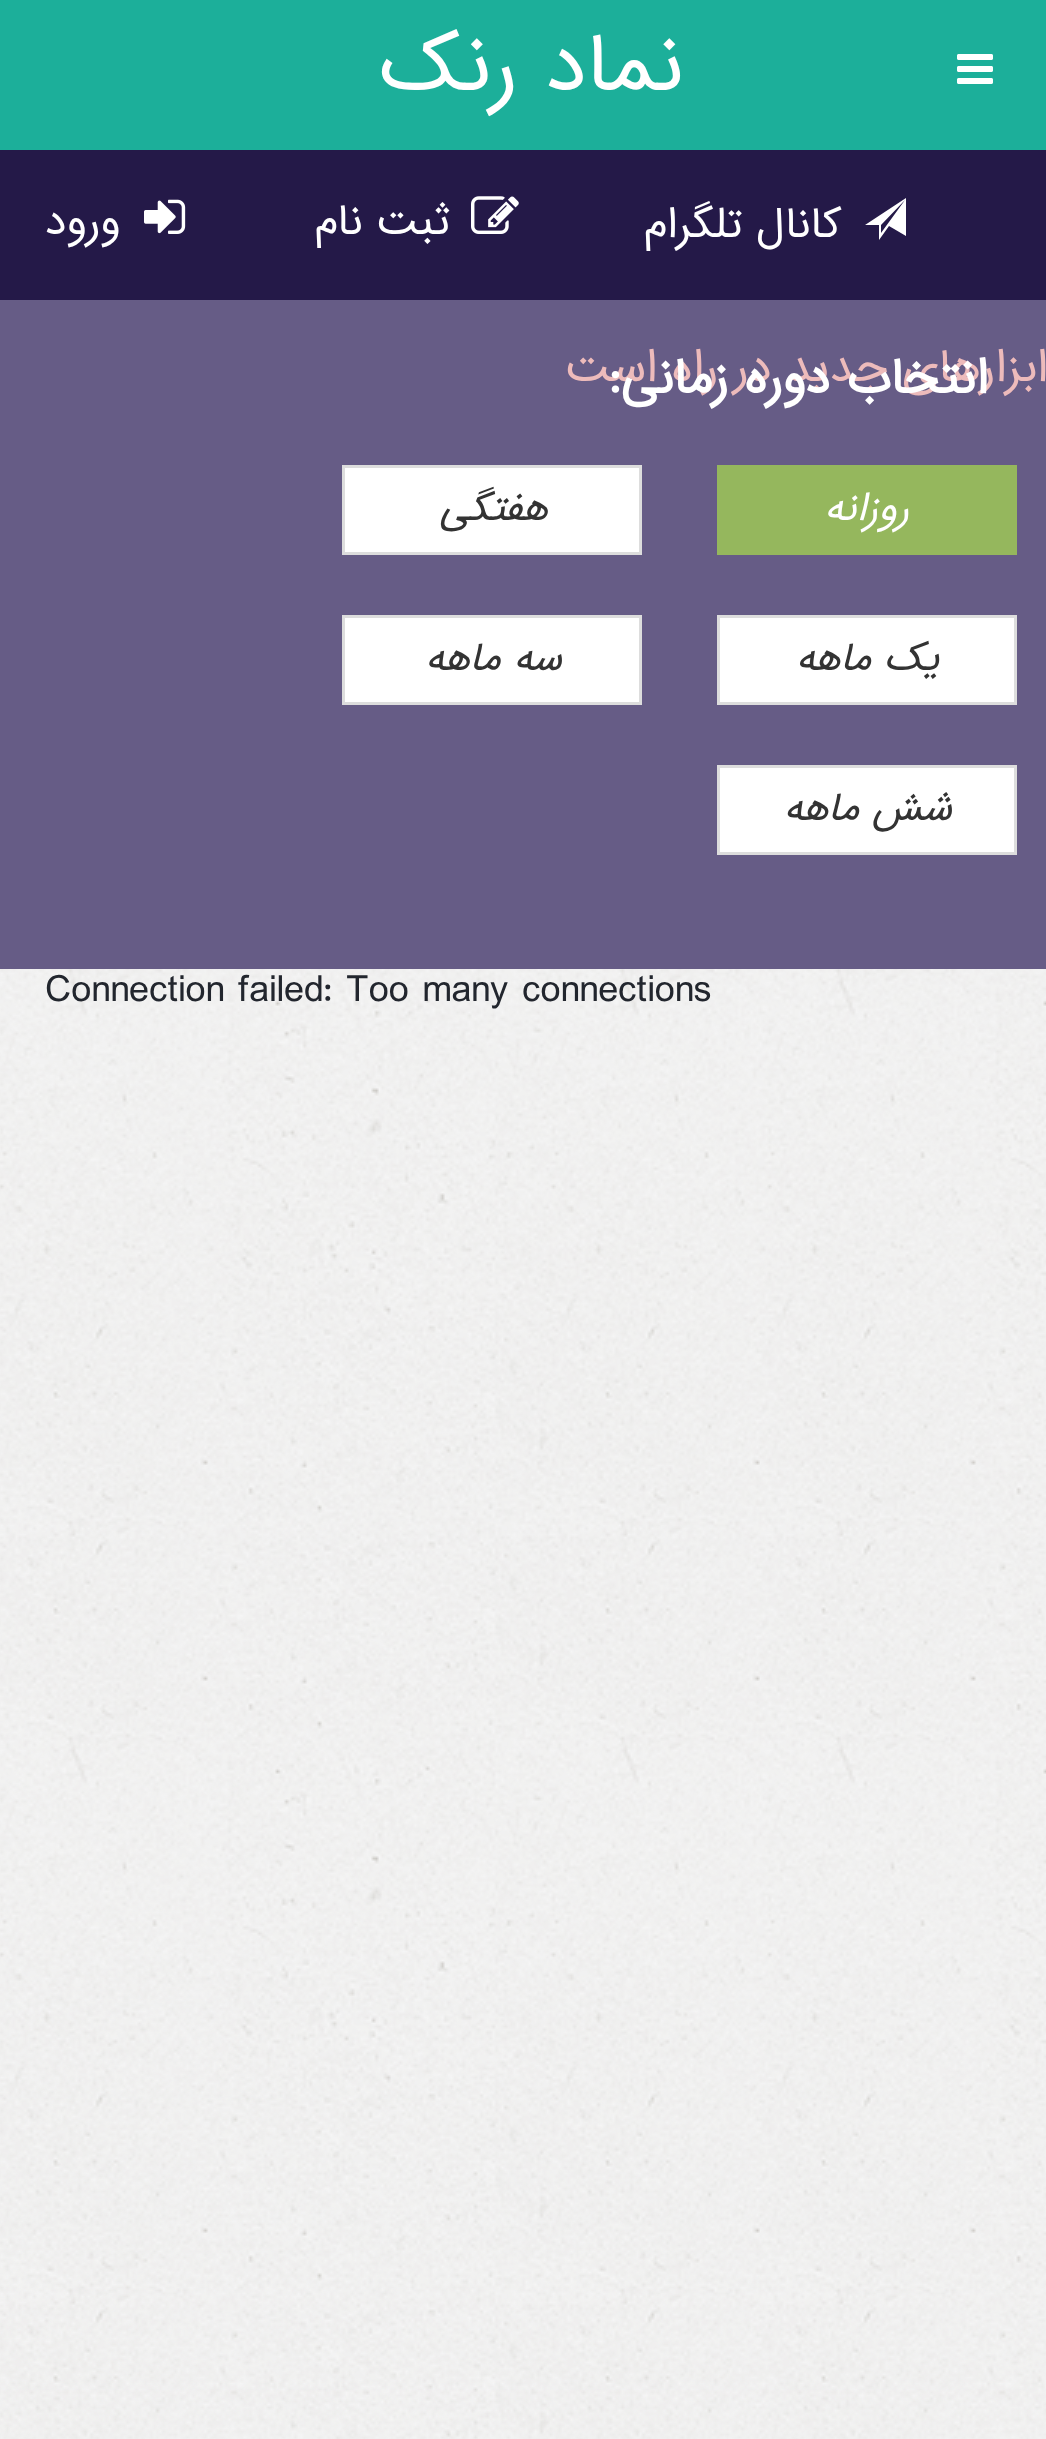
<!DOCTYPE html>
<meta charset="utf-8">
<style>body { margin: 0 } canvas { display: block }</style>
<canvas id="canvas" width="1046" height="2439"></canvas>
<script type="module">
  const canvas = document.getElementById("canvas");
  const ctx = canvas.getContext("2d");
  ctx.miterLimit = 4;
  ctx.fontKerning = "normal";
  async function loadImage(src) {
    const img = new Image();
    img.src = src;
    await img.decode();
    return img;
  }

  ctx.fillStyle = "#f5f5f5";
  ctx.fillRect(0, 0, 1046, 2439);
  ctx.fillStyle = "#1caf9a";
  ctx.fillRect(0, 0, 1046, 150);
  ctx.drawImage(await loadImage("img1.png"), 957, 54, 36, 30);
  ctx.direction = "rtl";
  ctx.font = "75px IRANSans";
  ctx.fillStyle = "#ffffff";
  ctx.fillText("نماد رنک", 683, 90);
  ctx.drawImage(await loadImage("img2.png"), 0, 969, 1046, 1470);
  ctx.fillStyle = "#241948";
  ctx.fillRect(0, 150, 1046, 150);
  ctx.fillStyle = "#ffffff";
  ctx.beginPath();
  ctx.moveTo(865, 225);
  ctx.lineTo(906, 198);
  ctx.lineTo(906, 236);
  ctx.lineTo(889, 226);
  ctx.lineTo(879, 240);
  ctx.lineTo(879, 225);
  ctx.closePath();
  ctx.moveTo(881, 233);
  ctx.lineTo(905, 200);
  ctx.lineTo(881, 225);
  ctx.closePath();
  ctx.fill();
  ctx.font = "39px IRANSans";
  ctx.fillText("کانال تلگرام", 840, 237);
  ctx.drawImage(await loadImage("img3.png"), 471, 196, 48, 38);
  ctx.fillText("ثبت نام", 449, 234);
  ctx.drawImage(await loadImage("img4.png"), 144, 199, 42, 35);
  ctx.fillText("ورود", 120, 234);
  ctx.fillStyle = "#665c86";
  ctx.fillRect(0, 300, 1046, 669);
  ctx.font = "42px IRANSans";
  ctx.fillStyle = "#edbbbb";
  ctx.fillText("ابزارهای جدید در راه است", 1047, 381);
  ctx.font = "bold 45px IRANSans";
  ctx.fillStyle = "#ffffff";
  ctx.fillText("انتخاب دوره زمانی:", 987, 393);
  ctx.fillStyle = "#95b75d";
  ctx.fillRect(717, 465, 300, 90);
  ctx.font = "italic 36px IRANSans";
  ctx.fillStyle = "#ffffff";
  ctx.fillText("روزانه", 909, 520);
  ctx.beginPath();
  ctx.rect(343.5, 466.5, 297, 87);
  ctx.fill();
  ctx.strokeStyle = "#dddddd";
  ctx.lineWidth = 3;
  ctx.stroke();
  ctx.fillStyle = "#333333";
  ctx.fillText("هفتگی", 547, 520);
  ctx.fillStyle = "#ffffff";
  ctx.beginPath();
  ctx.rect(718.5, 616.5, 297, 87);
  ctx.fill();
  ctx.stroke();
  ctx.fillStyle = "#333333";
  ctx.fillText("یک ماهه", 939, 670);
  ctx.fillStyle = "#ffffff";
  ctx.beginPath();
  ctx.rect(343.5, 616.5, 297, 87);
  ctx.fill();
  ctx.stroke();
  ctx.fillStyle = "#333333";
  ctx.fillText("سه ماهه", 561, 670);
  ctx.fillStyle = "#ffffff";
  ctx.beginPath();
  ctx.rect(718.5, 766.5, 297, 87);
  ctx.fill();
  ctx.stroke();
  ctx.fillStyle = "#333333";
  ctx.fillText("شش ماهه", 951, 820);
  ctx.direction = "ltr";
  ctx.font = "36px IRANSans";
  ctx.fillStyle = "#22262e";
  ctx.fillText("Connection failed: Too many connections", 45, 1001);
</script>
